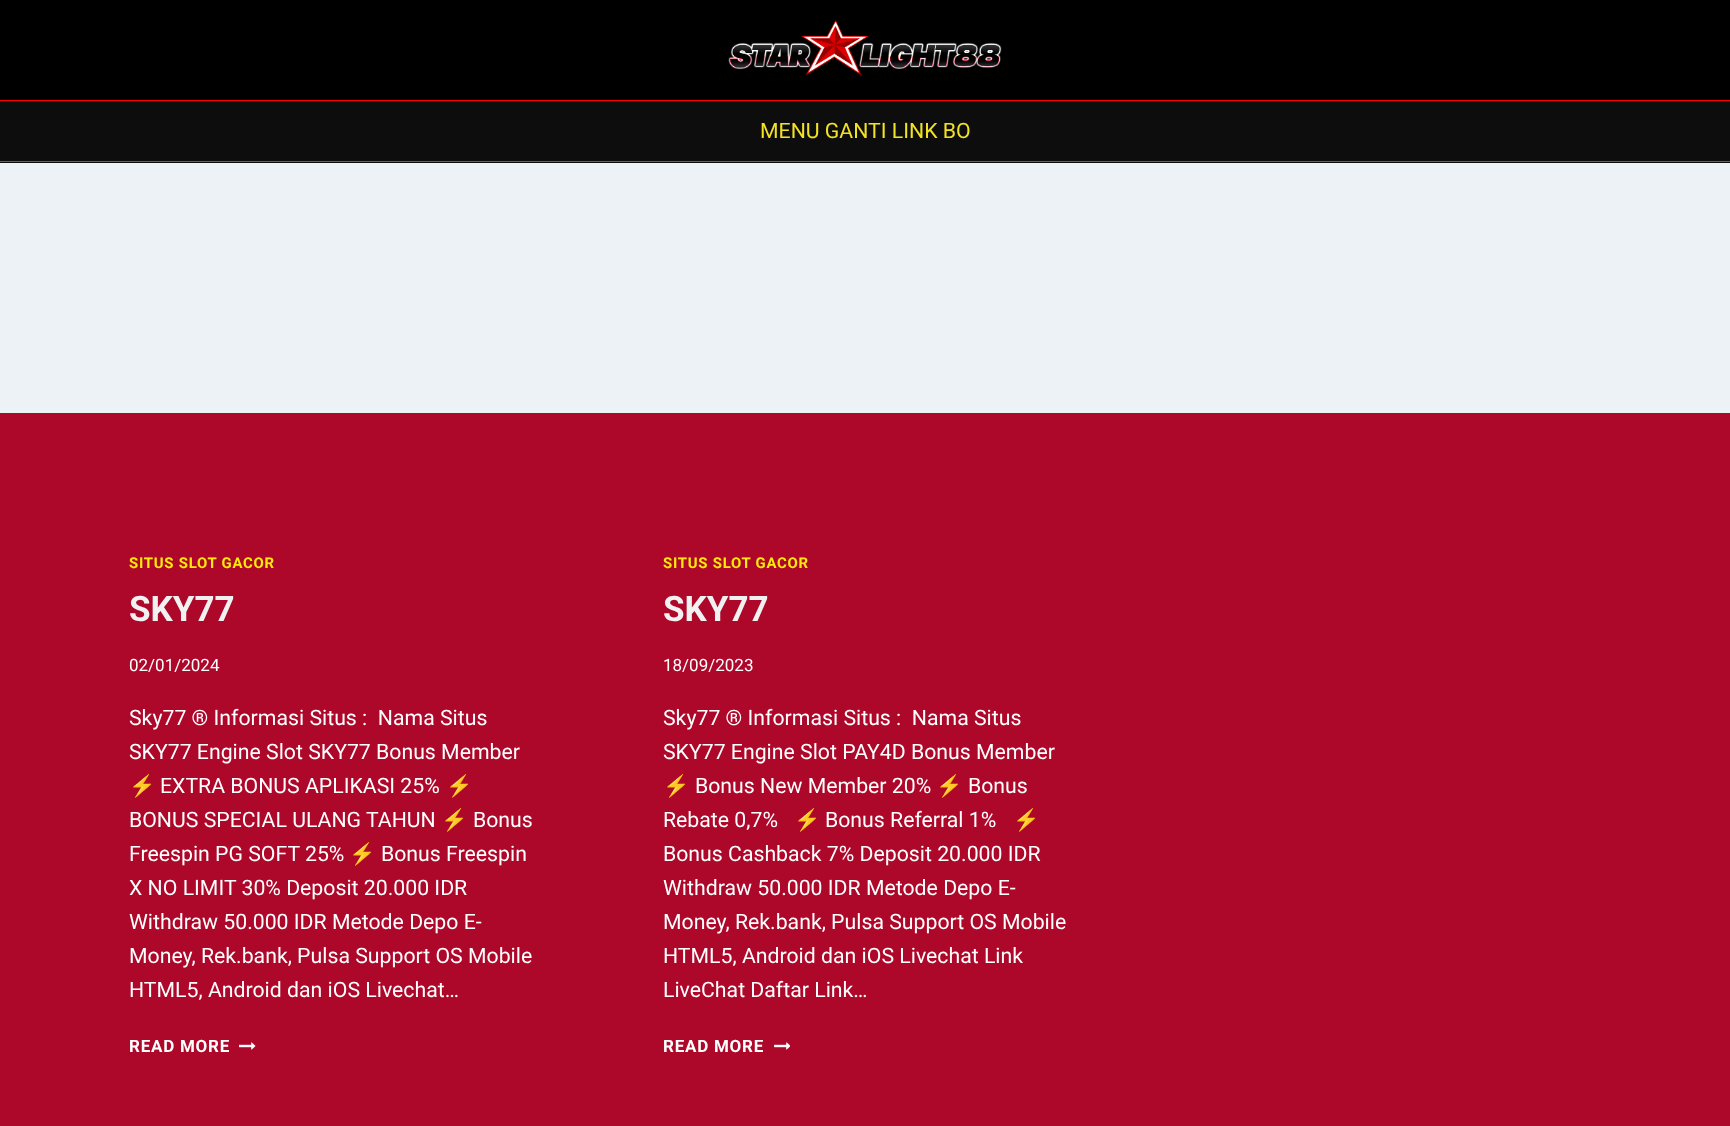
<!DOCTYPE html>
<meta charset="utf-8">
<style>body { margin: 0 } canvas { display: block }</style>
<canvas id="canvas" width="1730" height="1126"></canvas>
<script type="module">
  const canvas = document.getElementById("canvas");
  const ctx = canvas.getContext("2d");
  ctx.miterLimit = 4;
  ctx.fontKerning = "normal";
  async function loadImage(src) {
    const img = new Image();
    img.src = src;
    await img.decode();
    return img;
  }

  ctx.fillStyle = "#ad072a";
  ctx.fillRect(0, 0, 1730, 1126);
  ctx.fillStyle = "#000000";
  ctx.fillRect(0, 0, 1730, 100);
  ctx.fillStyle = "#ff0101";
  ctx.fillRect(0, 100, 1730, 1);
  ctx.drawImage(await loadImage("img1.png"), 728, 20, 274, 56);
  ctx.fillStyle = "#0d0d0d";
  ctx.fillRect(0, 101, 1730, 62);
  ctx.fillStyle = "#f92121";
  ctx.fillRect(0, 161, 1730, 1);
  ctx.font = "21.25px Roboto";
  ctx.fillStyle = "#f2e224";
  ctx.fillText("MENU GANTI LINK BO", 760, 138);
  ctx.fillStyle = "#edf2f7";
  ctx.fillRect(0, 163, 1730, 250);
  ctx.letterSpacing = "0.75px";
  ctx.font = "bold 14.9px Roboto";
  ctx.fillStyle = "#ffea0c";
  ctx.fillText("SITUS SLOT GACOR", 129, 568);
  ctx.letterSpacing = "0px";
  ctx.font = "bold 35px Roboto";
  ctx.fillStyle = "#f1f1f1";
  ctx.fillText("SKY77", 129, 621);
  ctx.font = "17px Roboto";
  ctx.fillStyle = "#ffffff";
  ctx.fillText("02/01/2024", 129, 671);
  ctx.font = "21.25px Roboto";
  ctx.fillText("Sky77 ® Informasi Situs :  Nama Situs", 129, 725);
  ctx.fillText("SKY77 Engine Slot SKY77 Bonus Member", 129, 759);
  ctx.font = "21.25px Noto Color Emoji";
  ctx.fillText("⚡️", 129, 793);
  ctx.font = "21.25px Roboto";
  ctx.fillText("EXTRA BONUS APLIKASI 25%", 160, 793);
  ctx.font = "21.25px Noto Color Emoji";
  ctx.fillText("⚡️", 446, 793);
  ctx.font = "21.25px Roboto";
  ctx.fillText("BONUS SPECIAL ULANG TAHUN", 129, 827);
  ctx.font = "21.25px Noto Color Emoji";
  ctx.fillText("⚡️", 441, 827);
  ctx.font = "21.25px Roboto";
  ctx.fillText("Bonus", 473, 827);
  ctx.fillText("Freespin PG SOFT 25%", 129, 861);
  ctx.font = "21.25px Noto Color Emoji";
  ctx.fillText("⚡️", 349, 861);
  ctx.font = "21.25px Roboto";
  ctx.fillText("Bonus Freespin", 381, 861);
  ctx.fillText("X NO LIMIT 30% Deposit 20.000 IDR", 129, 895);
  ctx.fillText("Withdraw 50.000 IDR Metode Depo E-", 129, 929);
  ctx.fillText("Money, Rek.bank, Pulsa Support OS Mobile", 129, 963);
  ctx.fillText("HTML5, Android dan iOS Livechat…", 129, 997);
  ctx.letterSpacing = "0.75px";
  ctx.font = "bold 17px Roboto";
  ctx.fillText("READ MORE", 129, 1052);
  ctx.drawImage(await loadImage("img2.png"), 239, 1042, 17, 8);
  ctx.font = "bold 14.9px Roboto";
  ctx.fillStyle = "#ffea0c";
  ctx.fillText("SITUS SLOT GACOR", 663, 568);
  ctx.letterSpacing = "0px";
  ctx.font = "bold 35px Roboto";
  ctx.fillStyle = "#f1f1f1";
  ctx.fillText("SKY77", 663, 621);
  ctx.font = "17px Roboto";
  ctx.fillStyle = "#ffffff";
  ctx.fillText("18/09/2023", 663, 671);
  ctx.font = "21.25px Roboto";
  ctx.fillText("Sky77 ® Informasi Situs :  Nama Situs", 663, 725);
  ctx.fillText("SKY77 Engine Slot PAY4D Bonus Member", 663, 759);
  ctx.font = "21.25px Noto Color Emoji";
  ctx.fillText("⚡️", 663, 793);
  ctx.font = "21.25px Roboto";
  ctx.fillText("Bonus New Member 20%", 695, 793);
  ctx.font = "21.25px Noto Color Emoji";
  ctx.fillText("⚡️", 936, 793);
  ctx.font = "21.25px Roboto";
  ctx.fillText("Bonus", 968, 793);
  ctx.fillText("Rebate 0,7%", 663, 827);
  ctx.font = "21.25px Noto Color Emoji";
  ctx.fillText("⚡️", 794, 827);
  ctx.font = "21.25px Roboto";
  ctx.fillText("Bonus Referral 1%", 825, 827);
  ctx.font = "21.25px Noto Color Emoji";
  ctx.fillText("⚡️", 1013, 827);
  ctx.font = "21.25px Roboto";
  ctx.fillText("Bonus Cashback 7% Deposit 20.000 IDR", 663, 861);
  ctx.fillText("Withdraw 50.000 IDR Metode Depo E-", 663, 895);
  ctx.fillText("Money, Rek.bank, Pulsa Support OS Mobile", 663, 929);
  ctx.fillText("HTML5, Android dan iOS Livechat Link", 663, 963);
  ctx.fillText("LiveChat Daftar Link…", 663, 997);
  ctx.letterSpacing = "0.75px";
  ctx.font = "bold 17px Roboto";
  ctx.fillText("READ MORE", 663, 1052);
  ctx.drawImage(await loadImage("img3.png"), 774, 1042, 16, 8);
</script>
